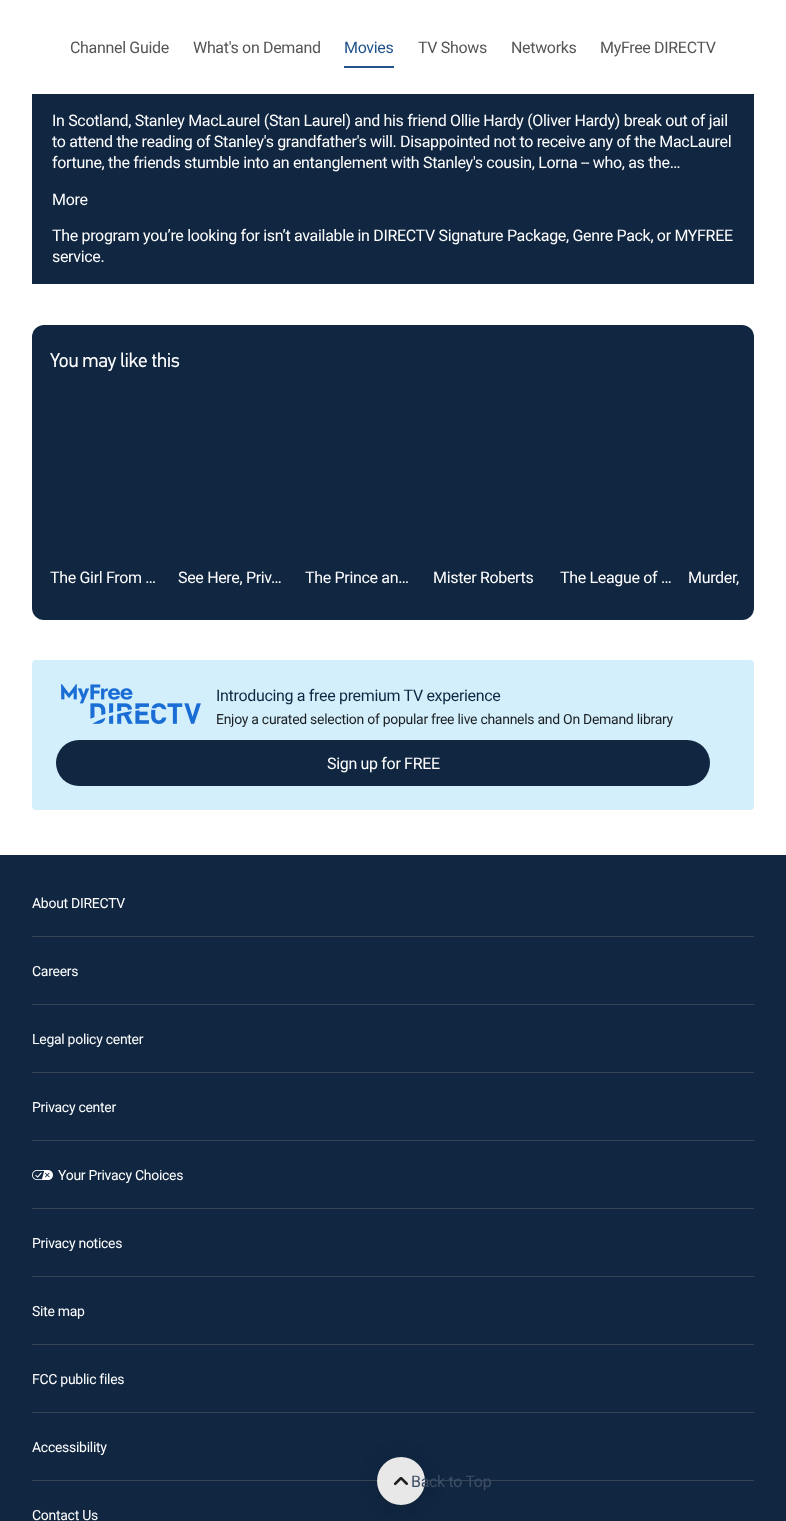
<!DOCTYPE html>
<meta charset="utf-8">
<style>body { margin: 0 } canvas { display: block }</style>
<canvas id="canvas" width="786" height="1521"></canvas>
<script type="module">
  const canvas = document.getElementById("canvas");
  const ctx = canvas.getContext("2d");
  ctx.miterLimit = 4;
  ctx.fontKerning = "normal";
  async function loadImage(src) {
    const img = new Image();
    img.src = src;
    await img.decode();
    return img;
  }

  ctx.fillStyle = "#ffffff";
  ctx.fillRect(0, 0, 786, 1521);
  ctx.letterSpacing = "-0.32px";
  ctx.font = "16px Roboto";
  ctx.fillStyle = "#555555";
  ctx.fillText("Channel Guide", 70, 53);
  ctx.fillText("What's on Demand", 193, 53);
  ctx.fillStyle = "#21528c";
  ctx.fillText("Movies", 344, 53);
  ctx.fillRect(344, 66, 50, 2);
  ctx.fillStyle = "#555555";
  ctx.fillText("TV Shows", 418, 53);
  ctx.fillText("Networks", 511, 53);
  ctx.fillText("MyFree DIRECTV", 600, 53);
  ctx.fillStyle = "#102641";
  ctx.fillRect(32, 94, 722, 190);
  ctx.fillStyle = "#ffffff";
  ctx.fillText("In Scotland, Stanley MacLaurel (Stan Laurel) and his friend Ollie Hardy (Oliver Hardy) break out of jail", 52, 126);
  ctx.fillText("to attend the reading of Stanley's grandfather's will. Disappointed not to receive any of the MacLaurel", 52, 147);
  ctx.fillText("fortune, the friends stumble into an entanglement with Stanley's cousin, Lorna -- who, as the…", 52, 168);
  ctx.fillText("More", 52, 205);
  ctx.fillText("The program you’re looking for isn’t available in DIRECTV Signature Package, Genre Pack, or MYFREE", 52, 241);
  ctx.fillText("service.", 52, 262);
  ctx.fillStyle = "#102641";
  ctx.beginPath();
  ctx.roundRect(32, 325, 722, 295, 12);
  ctx.fill();
  ctx.letterSpacing = "-0.4px";
  ctx.font = "20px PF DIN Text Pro";
  ctx.fillStyle = "#ffffff";
  ctx.fillText("You may like this", 50, 367);
  ctx.letterSpacing = "-0.32px";
  ctx.font = "16px Roboto";
  ctx.fillText("The Girl From …", 50, 583);
  ctx.fillText("See Here, Priv…", 178, 583);
  ctx.fillText("The Prince an…", 305, 583);
  ctx.fillText("Mister Roberts", 433, 583);
  ctx.fillText("The League of …", 560, 583);
  ctx.fillText("Murder,", 688, 583);
  ctx.fillStyle = "#d3effc";
  ctx.beginPath();
  ctx.roundRect(32, 660, 722, 150, 4);
  ctx.fill();
  ctx.drawImage(await loadImage("img1.png"), 61, 684, 140, 40);
  ctx.fillStyle = "#102641";
  ctx.fillText("Introducing a free premium TV experience", 216, 701);
  ctx.letterSpacing = "-0.28px";
  ctx.font = "14px Roboto";
  ctx.fillStyle = "#1b1f21";
  ctx.fillText("Enjoy a curated selection of popular free live channels and On Demand library", 216, 724);
  ctx.fillStyle = "#102641";
  ctx.beginPath();
  ctx.roundRect(56, 740, 654, 46, 23);
  ctx.fill();
  ctx.letterSpacing = "-0.32px";
  ctx.font = "16px Roboto";
  ctx.fillStyle = "#ffffff";
  ctx.fillText("Sign up for FREE", 327, 769);
  ctx.fillStyle = "#102641";
  ctx.fillRect(0, 855, 786, 666);
  ctx.fillStyle = "#364558";
  ctx.fillRect(32, 1480, 722, 1);
  ctx.fillStyle = "rgba(0, 0, 0, 0.15)";
  ctx.filter = "blur(10px)";
  ctx.beginPath();
  ctx.roundRect(377, 1459, 48, 48, 24);
  ctx.fill();
  ctx.filter = "none";
  ctx.fillStyle = "#e8e8e8";
  ctx.beginPath();
  ctx.arc(401, 1481, 24, 0, Math.PI * 2);
  ctx.fill();
  ctx.drawImage(await loadImage("img2.png"), 393, 1477, 15, 9);
  ctx.fillStyle = "#3e4f64";
  ctx.fillText("Back to Top", 411, 1487);
  ctx.letterSpacing = "-0.28px";
  ctx.font = "14px Roboto";
  ctx.fillStyle = "#ffffff";
  ctx.fillText("About DIRECTV", 32, 908);
  ctx.fillStyle = "#364558";
  ctx.fillRect(32, 936, 722, 1);
  ctx.fillStyle = "#ffffff";
  ctx.fillText("Careers", 32, 976);
  ctx.fillStyle = "#364558";
  ctx.fillRect(32, 1004, 722, 1);
  ctx.fillStyle = "#ffffff";
  ctx.fillText("Legal policy center", 32, 1044);
  ctx.fillStyle = "#364558";
  ctx.fillRect(32, 1072, 722, 1);
  ctx.fillStyle = "#ffffff";
  ctx.fillText("Privacy center", 32, 1112);
  ctx.fillStyle = "#364558";
  ctx.fillRect(32, 1140, 722, 1);
  ctx.drawImage(await loadImage("img3.png"), 32, 1170, 21, 10);
  ctx.fillStyle = "#ffffff";
  ctx.fillText("Your Privacy Choices", 58, 1180);
  ctx.fillStyle = "#364558";
  ctx.fillRect(32, 1208, 722, 1);
  ctx.fillStyle = "#ffffff";
  ctx.fillText("Privacy notices", 32, 1248);
  ctx.fillStyle = "#364558";
  ctx.fillRect(32, 1276, 722, 1);
  ctx.fillStyle = "#ffffff";
  ctx.fillText("Site map", 32, 1316);
  ctx.fillStyle = "#364558";
  ctx.fillRect(32, 1344, 722, 1);
  ctx.fillStyle = "#ffffff";
  ctx.fillText("FCC public files", 32, 1384);
  ctx.fillStyle = "#364558";
  ctx.fillRect(32, 1412, 722, 1);
  ctx.fillStyle = "#ffffff";
  ctx.fillText("Accessibility", 32, 1452);
  ctx.fillText("Contact Us", 32, 1520);
</script>
